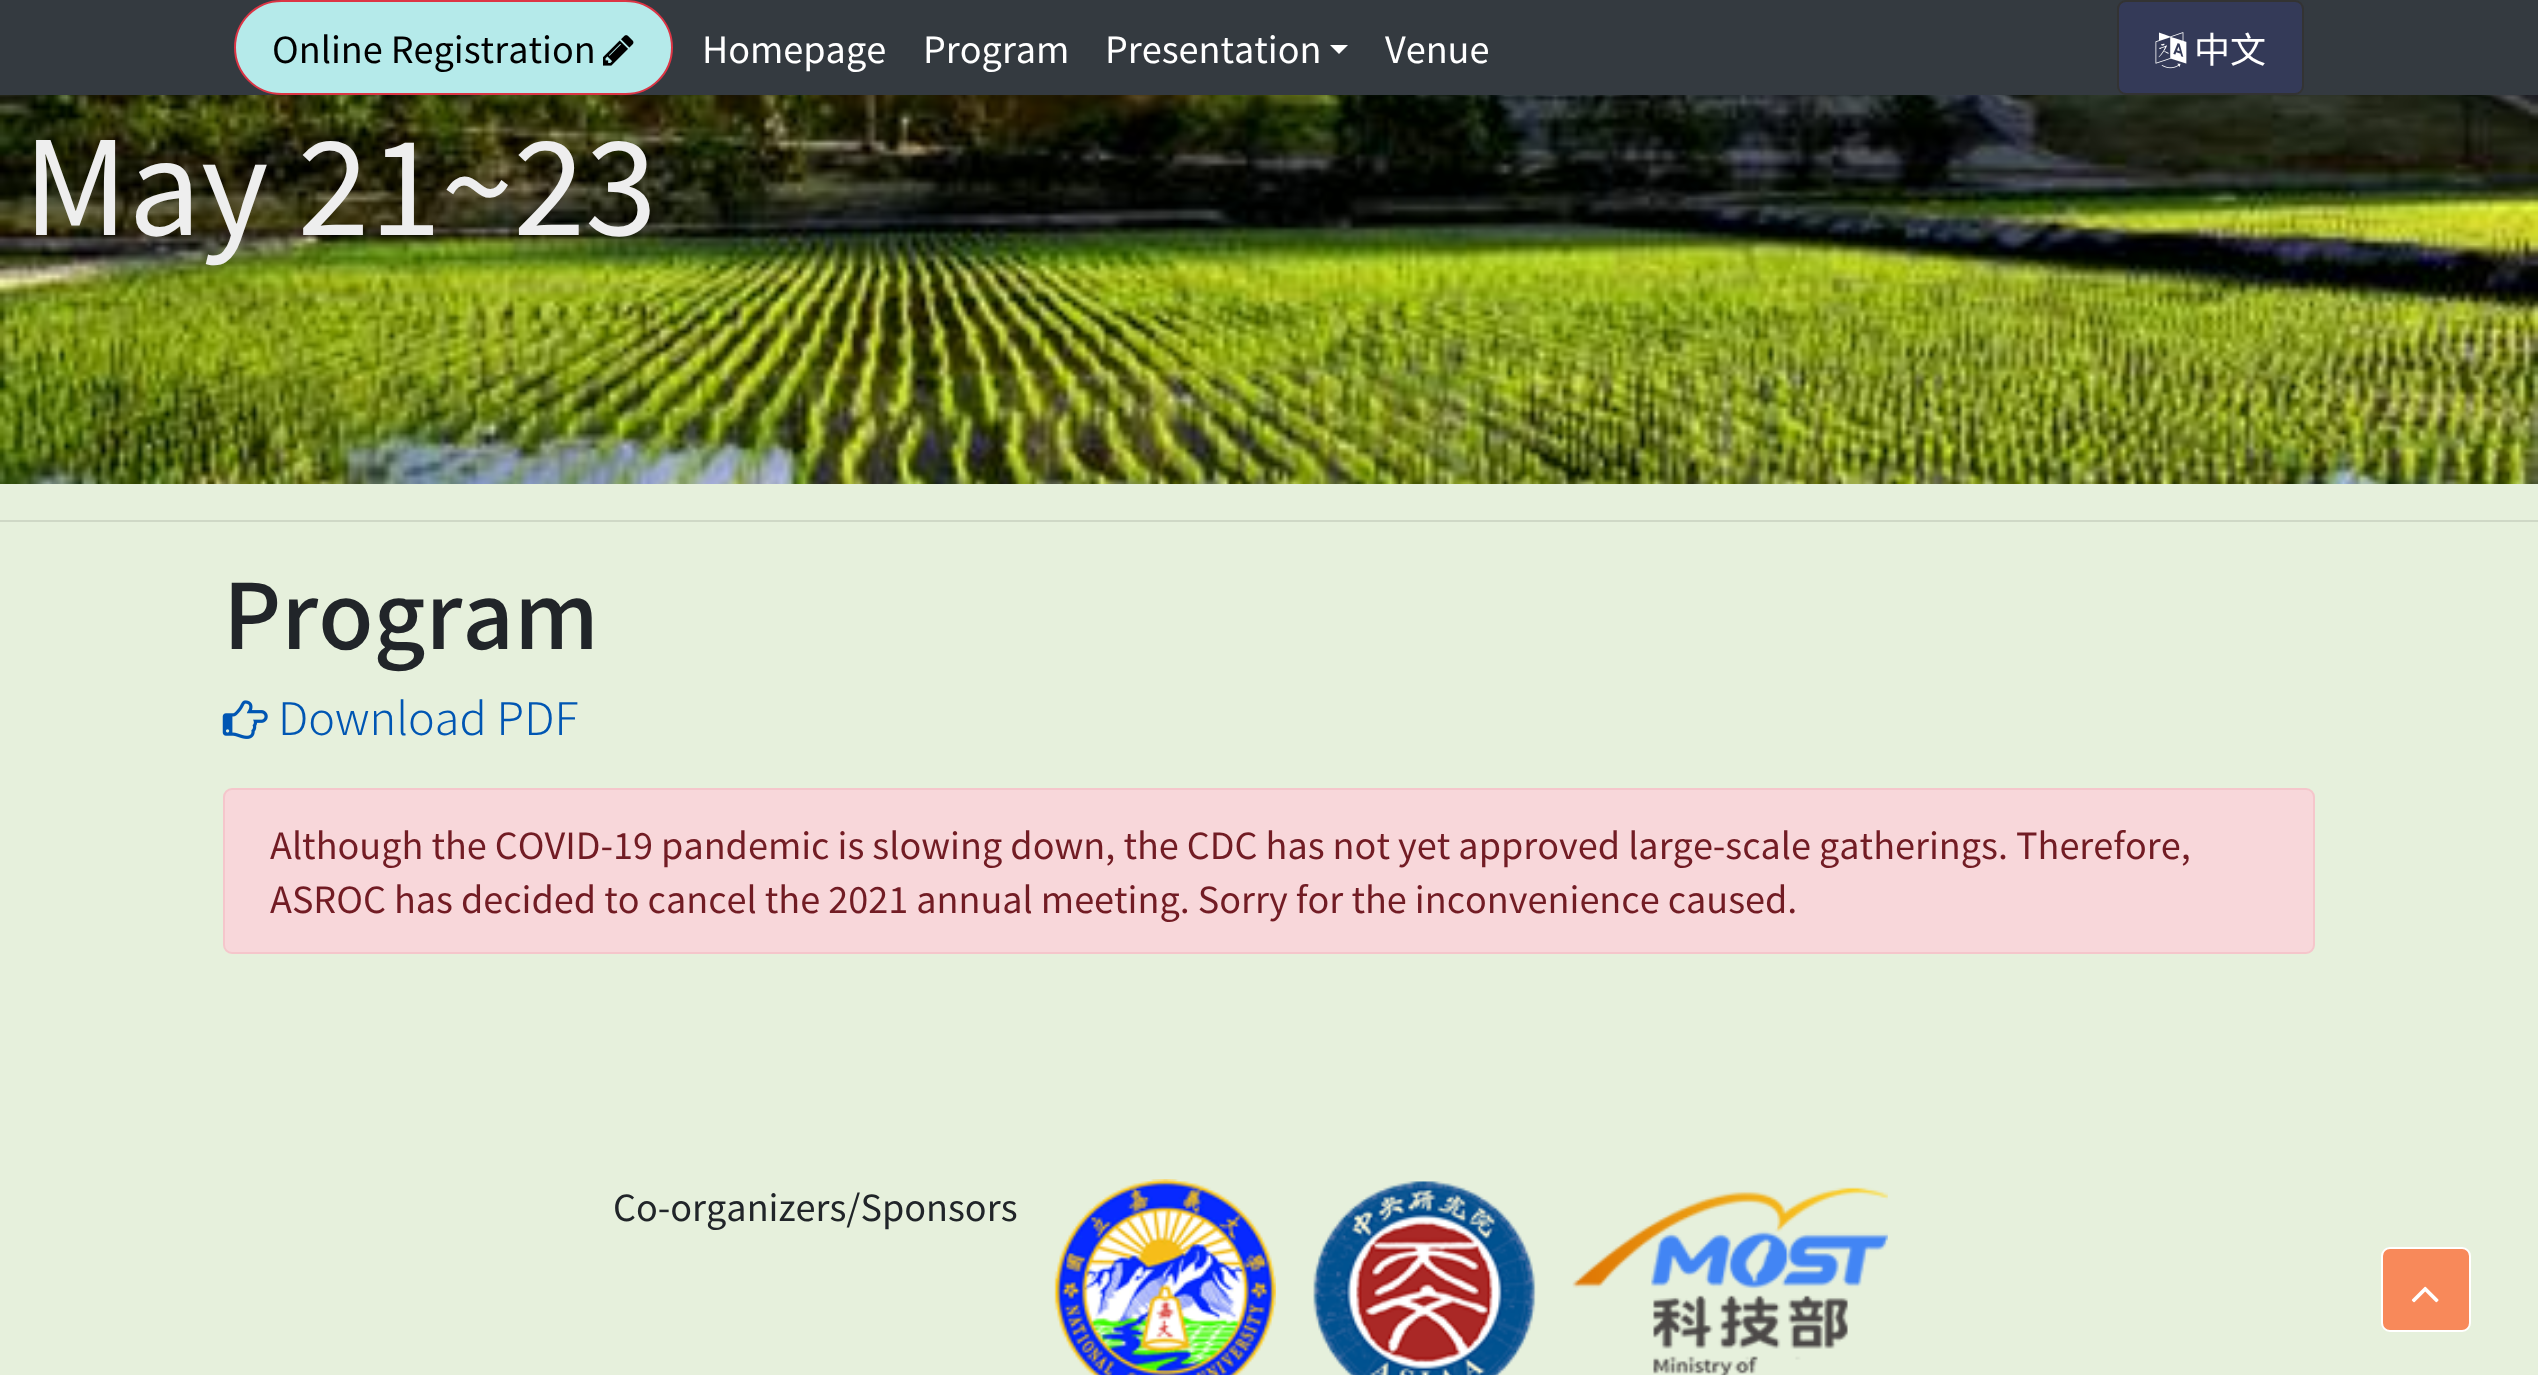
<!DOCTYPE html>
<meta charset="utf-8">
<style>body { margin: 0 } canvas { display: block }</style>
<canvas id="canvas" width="2538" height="1375"></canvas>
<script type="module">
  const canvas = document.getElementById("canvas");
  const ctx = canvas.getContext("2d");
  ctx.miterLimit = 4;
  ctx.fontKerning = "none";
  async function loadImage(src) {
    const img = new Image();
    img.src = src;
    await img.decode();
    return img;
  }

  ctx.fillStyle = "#e6f0dc";
  ctx.fillRect(0, 0, 2538, 1375);
  ctx.fillStyle = "#343a40";
  ctx.fillRect(0, 0, 2538, 95);
  ctx.fillStyle = "#b5eaea";
  ctx.beginPath();
  ctx.roundRect(235, 1, 437, 93, 46.5);
  ctx.fill();
  ctx.strokeStyle = "#dc3545";
  ctx.lineWidth = 2;
  ctx.stroke();
  ctx.font = "36px Noto Sans TC";
  ctx.fillStyle = "#000000";
  ctx.fillText("Online Registration", 272, 63);
  ctx.drawImage(await loadImage("img1.png"), 603, 35, 31, 31);
  ctx.fillStyle = "#ffffff";
  ctx.fillText("Homepage", 702, 63);
  ctx.fillText("Program", 923, 63);
  ctx.fillText("Presentation", 1105, 63);
  ctx.beginPath();
  ctx.moveTo(1330, 45);
  ctx.lineTo(1348, 45);
  ctx.lineTo(1339, 54);
  ctx.closePath();
  ctx.fill();
  ctx.fillText("Venue", 1385, 63);
  ctx.fillStyle = "#343a58";
  ctx.beginPath();
  ctx.roundRect(2118, 1, 185, 93, 8);
  ctx.fill();
  ctx.strokeStyle = "#333333";
  ctx.stroke();
  ctx.drawImage(await loadImage("img2.png"), 2155, 32, 32, 37);
  ctx.fillStyle = "#ffffff";
  ctx.fillText("中文", 2194, 63);
  ctx.drawImage(await loadImage("img3.png"), 0, 95, 2538, 389);
  ctx.font = "129.5px Noto Sans TC";
  ctx.fillStyle = "#eeeeee";
  ctx.fillText("May 21~23", 23, 235);
  ctx.fillStyle = "#cfd8c6";
  ctx.fillRect(0, 520, 2538, 2);
  ctx.font = "500 90px Noto Sans TC";
  ctx.fillStyle = "#212529";
  ctx.fillText("Program", 223, 649);
  ctx.drawImage(await loadImage("img4.png"), 222, 700, 46, 39);
  ctx.font = "300 45px Noto Sans TC";
  ctx.fillStyle = "#0056b3";
  ctx.fillText("Download PDF", 278, 735);
  ctx.fillStyle = "#f8d7da";
  ctx.beginPath();
  ctx.roundRect(224, 789, 2090, 164, 8);
  ctx.fill();
  ctx.strokeStyle = "#f5c6cb";
  ctx.stroke();
  ctx.font = "36px Noto Sans TC";
  ctx.fillStyle = "#721c24";
  ctx.fillText("Although the COVID-19 pandemic is slowing down, the CDC has not yet approved large-scale", 270, 859);
  ctx.fillText("gatherings. Therefore,", 1819, 859);
  ctx.fillText("ASROC has decided to cancel the 2021 annual meeting. Sorry for the inconvenience caused.", 270, 913);
  ctx.fillStyle = "#212529";
  ctx.fillText("Co-organizers/Sponsors", 613, 1221);
  ctx.drawImage(await loadImage("img5.png"), 1054, 1179, 222, 196);
  ctx.drawImage(await loadImage("img6.png"), 1313, 1181, 223, 194);
  ctx.drawImage(await loadImage("img7.png"), 1572, 1187, 316, 188);
  ctx.fillStyle = "#f8895a";
  ctx.beginPath();
  ctx.roundRect(2382, 1248, 88, 83, 8);
  ctx.fill();
  ctx.strokeStyle = "#ffffff";
  ctx.stroke();
  ctx.drawImage(await loadImage("img8.png"), 2411, 1286, 28, 17);
</script>
